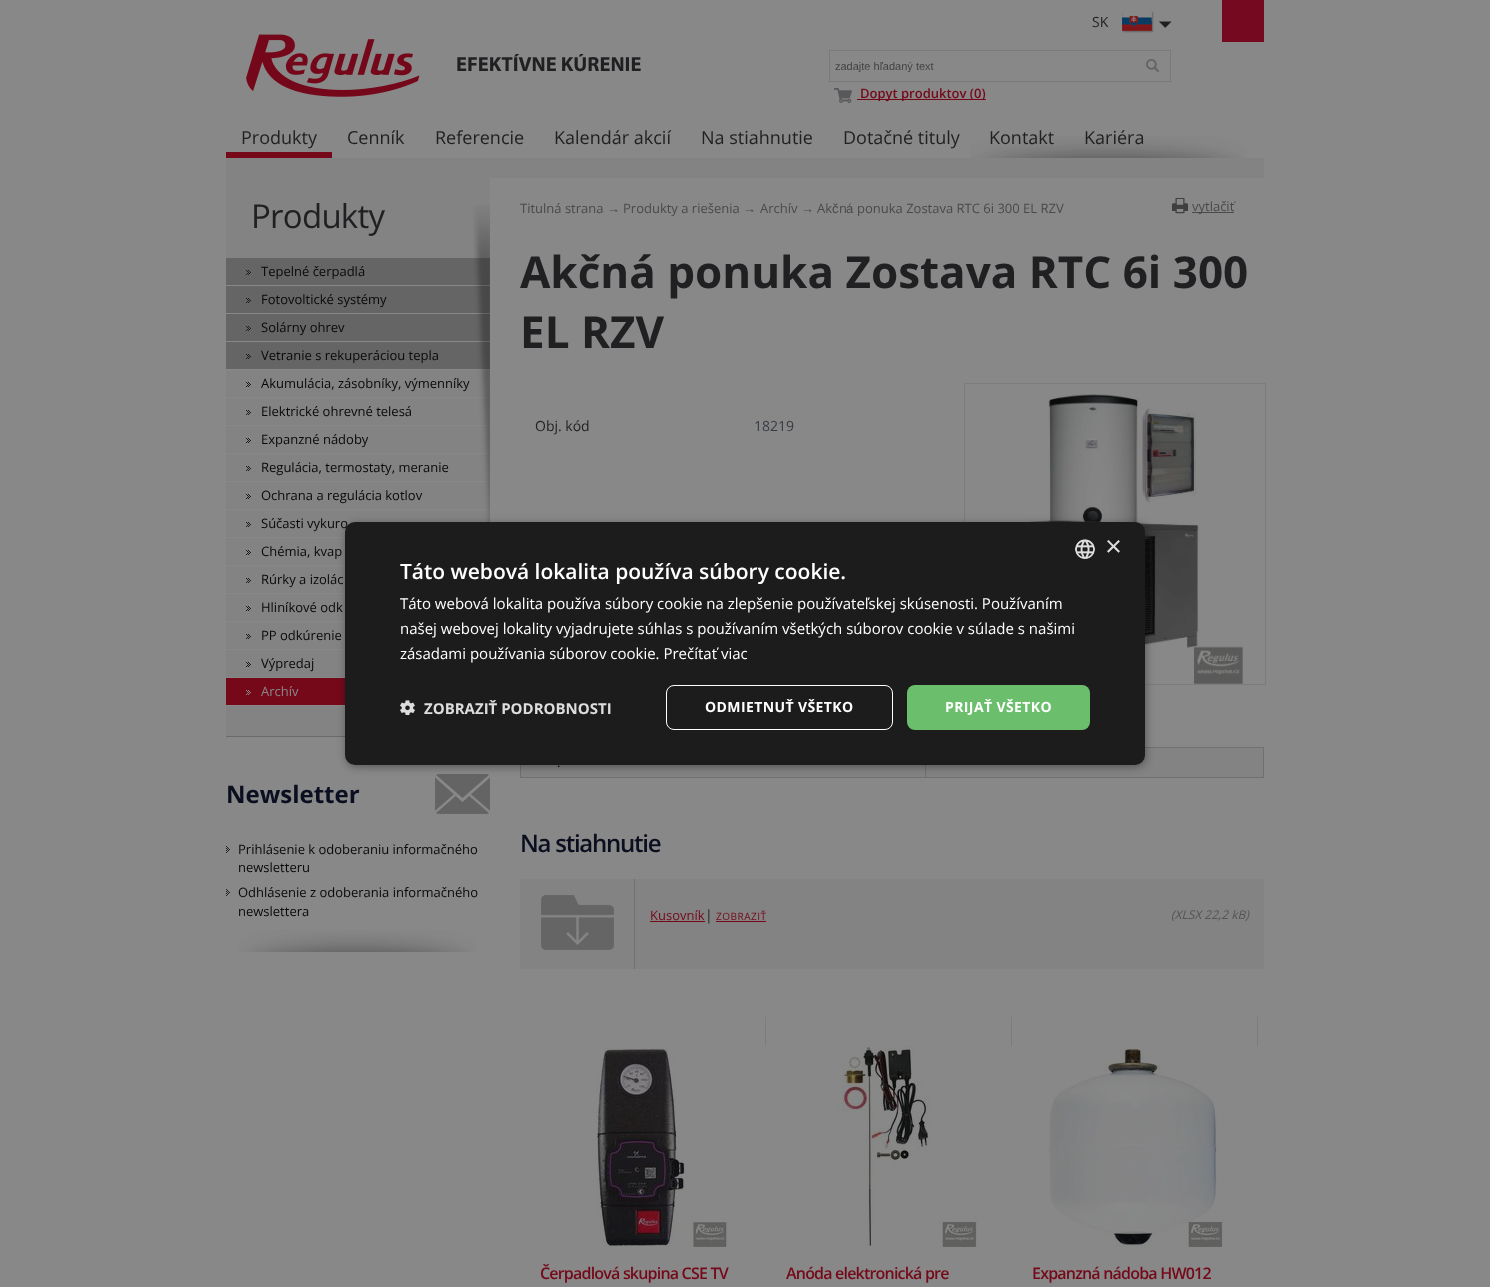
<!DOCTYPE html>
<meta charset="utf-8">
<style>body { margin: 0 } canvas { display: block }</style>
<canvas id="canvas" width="1490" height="1287"></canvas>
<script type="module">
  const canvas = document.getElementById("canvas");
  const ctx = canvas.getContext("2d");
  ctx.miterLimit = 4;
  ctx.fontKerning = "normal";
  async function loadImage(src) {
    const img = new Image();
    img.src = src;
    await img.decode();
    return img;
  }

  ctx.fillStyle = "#888888";
  ctx.fillRect(0, 0, 1490, 1287);
  ctx.drawImage(await loadImage("img1.png"), 970, 136, 277, 22);
  ctx.fillStyle = "#740920";
  ctx.fillRect(1222, 0, 42, 42);
  ctx.drawImage(await loadImage("img2.png"), 1159, 21, 13, 7);
  ctx.drawImage(await loadImage("img3.png"), 1122, 11, 32, 22);
  ctx.font = "14px Open Sans";
  ctx.fillStyle = "#201f21";
  ctx.fillText("SK", 1092, 27);
  ctx.drawImage(await loadImage("img4.png"), 246, 34, 174, 63);
  ctx.font = "bold 20.5px Myriad";
  ctx.fillText("EFEKTÍVNE KÚRENIE", 456, 71);
  ctx.strokeStyle = "#797979";
  ctx.strokeRect(829.5, 50.5, 341, 31);
  ctx.save();
  ctx.beginPath();
  ctx.rect(835, 60, 330, 12);
  ctx.clip();
  ctx.font = "11px Liberation Sans";
  ctx.fillStyle = "#434343";
  ctx.fillText("zadajte hľadaný text", 835, 70);
  ctx.restore();
  ctx.drawImage(await loadImage("img5.png"), 1146, 59, 13, 13);
  ctx.drawImage(await loadImage("img6.png"), 834, 88, 18, 15);
  ctx.fillStyle = "#75091a";
  ctx.fillRect(857, 99, 129, 1);
  ctx.font = "600 13px Open Sans";
  ctx.fillText("Dopyt produktov (0)", 860, 98);
  ctx.fillRect(226, 152, 106, 6);
  ctx.font = "18px Open Sans";
  ctx.fillStyle = "#201f21";
  ctx.fillText("Produkty", 241, 144);
  ctx.fillText("Cenník", 347, 144);
  ctx.fillText("Referencie", 435, 144);
  ctx.fillText("Kalendár akcií", 554, 144);
  ctx.fillText("Na stiahnutie", 701, 144);
  ctx.fillText("Dotačné tituly", 843, 144);
  ctx.fillText("Kontakt", 989, 144);
  ctx.fillText("Kariéra", 1084, 144);
  ctx.fillStyle = "#838383";
  ctx.fillRect(226, 158, 264, 578);
  ctx.fillStyle = "#696a6b";
  ctx.fillRect(226, 736, 119, 1);
  ctx.letterSpacing = "-0.75px";
  ctx.font = "33px Open Sans";
  ctx.fillStyle = "#201f21";
  ctx.fillText("Produkty", 251, 228);
  ctx.fillStyle = "#656565";
  ctx.fillRect(226, 258, 264, 27);
  ctx.drawImage(await loadImage("img7.png"), 246, 270, 5, 5);
  ctx.fillStyle = "#888888";
  ctx.fillRect(226, 285, 264, 1);
  ctx.letterSpacing = "0px";
  ctx.font = "13px Open Sans";
  ctx.fillStyle = "#090909";
  ctx.fillText("Tepelné čerpadlá", 261, 276);
  ctx.fillStyle = "#656565";
  ctx.fillRect(226, 286, 264, 27);
  ctx.drawImage(await loadImage("img7.png"), 246, 298, 5, 5);
  ctx.fillStyle = "#888888";
  ctx.fillRect(226, 313, 264, 1);
  ctx.fillStyle = "#090909";
  ctx.fillText("Fotovoltické systémy", 261, 304);
  ctx.fillStyle = "#656565";
  ctx.fillRect(226, 314, 264, 27);
  ctx.drawImage(await loadImage("img7.png"), 246, 326, 5, 5);
  ctx.fillStyle = "#888888";
  ctx.fillRect(226, 341, 264, 1);
  ctx.fillStyle = "#090909";
  ctx.fillText("Solárny ohrev", 261, 332);
  ctx.fillStyle = "#656565";
  ctx.fillRect(226, 342, 264, 27);
  ctx.drawImage(await loadImage("img7.png"), 246, 354, 5, 5);
  ctx.fillStyle = "#888888";
  ctx.fillRect(226, 369, 264, 1);
  ctx.fillStyle = "#090909";
  ctx.fillText("Vetranie s rekuperáciou tepla", 261, 360);
  ctx.drawImage(await loadImage("img8.png"), 246, 382, 5, 5);
  ctx.fillStyle = "#888888";
  ctx.fillRect(226, 397, 264, 1);
  ctx.fillStyle = "#090909";
  ctx.fillText("Akumulácia, zásobníky, výmenníky", 261, 388);
  ctx.drawImage(await loadImage("img8.png"), 246, 410, 5, 5);
  ctx.fillStyle = "#888888";
  ctx.fillRect(226, 425, 264, 1);
  ctx.fillStyle = "#090909";
  ctx.fillText("Elektrické ohrevné telesá", 261, 416);
  ctx.drawImage(await loadImage("img8.png"), 246, 438, 5, 5);
  ctx.fillStyle = "#888888";
  ctx.fillRect(226, 453, 264, 1);
  ctx.fillStyle = "#090909";
  ctx.fillText("Expanzné nádoby", 261, 444);
  ctx.drawImage(await loadImage("img8.png"), 246, 466, 5, 5);
  ctx.fillStyle = "#888888";
  ctx.fillRect(226, 481, 264, 1);
  ctx.fillStyle = "#090909";
  ctx.fillText("Regulácia, termostaty, meranie", 261, 472);
  ctx.drawImage(await loadImage("img8.png"), 246, 494, 5, 5);
  ctx.fillStyle = "#888888";
  ctx.fillRect(226, 509, 264, 1);
  ctx.fillStyle = "#090909";
  ctx.fillText("Ochrana a regulácia kotlov", 261, 500);
  ctx.drawImage(await loadImage("img8.png"), 246, 522, 5, 5);
  ctx.fillStyle = "#888888";
  ctx.fillRect(226, 537, 119, 1);
  ctx.fillStyle = "#090909";
  ctx.fillText("Súčasti vykuro", 261, 528);
  ctx.drawImage(await loadImage("img8.png"), 246, 550, 5, 5);
  ctx.fillStyle = "#888888";
  ctx.fillRect(226, 565, 119, 1);
  ctx.fillStyle = "#090909";
  ctx.fillText("Chémia, kvap", 261, 556);
  ctx.drawImage(await loadImage("img8.png"), 246, 578, 5, 5);
  ctx.fillStyle = "#888888";
  ctx.fillRect(226, 593, 119, 1);
  ctx.fillStyle = "#090909";
  ctx.fillText("Rúrky a izolác", 261, 584);
  ctx.drawImage(await loadImage("img8.png"), 246, 606, 5, 5);
  ctx.fillStyle = "#888888";
  ctx.fillRect(226, 621, 119, 1);
  ctx.fillStyle = "#090909";
  ctx.fillText("Hliníkové odk", 261, 612);
  ctx.drawImage(await loadImage("img8.png"), 246, 634, 5, 5);
  ctx.fillStyle = "#888888";
  ctx.fillRect(226, 649, 119, 1);
  ctx.fillStyle = "#090909";
  ctx.fillText("PP odkúrenie", 261, 640);
  ctx.drawImage(await loadImage("img8.png"), 246, 662, 5, 5);
  ctx.fillStyle = "#888888";
  ctx.fillRect(226, 677, 119, 1);
  ctx.fillStyle = "#090909";
  ctx.fillText("Výpredaj", 261, 668);
  ctx.fillStyle = "#75091a";
  ctx.fillRect(226, 678, 119, 27);
  ctx.drawImage(await loadImage("img9.png"), 246, 690, 5, 5);
  ctx.fillStyle = "#888888";
  ctx.fillRect(226, 705, 119, 1);
  ctx.fillText("Archív", 261, 696);
  ctx.drawImage(await loadImage("img10.png"), 473, 205, 17, 317);
  ctx.drawImage(await loadImage("img11.png"), 239, 930, 237, 22);
  ctx.drawImage(await loadImage("img12.png"), 435, 774, 55, 40);
  ctx.font = "bold 24px Open Sans";
  ctx.fillStyle = "#0b0e1f";
  ctx.fillText("Newsletter", 226, 803);
  ctx.drawImage(await loadImage("img13.png"), 226, 846, 4, 7);
  ctx.font = "13px Open Sans";
  ctx.fillStyle = "#090909";
  ctx.fillText("Prihlásenie k odoberaniu informačného", 238, 854);
  ctx.fillText("newsletteru", 238, 872);
  ctx.drawImage(await loadImage("img13.png"), 226, 889, 4, 7);
  ctx.fillText("Odhlásenie z odoberania informačného", 238, 897);
  ctx.fillText("newslettera", 238, 916);
  ctx.fillStyle = "#838383";
  ctx.fillRect(490, 158, 774, 20);
  ctx.fillStyle = "#4a4a4a";
  ctx.fillText("Titulná strana", 520, 213);
  ctx.font = "13px Liberation Sans";
  ctx.fillText("→", 607, 213);
  ctx.font = "13px Open Sans";
  ctx.fillText("Produkty a riešenia", 623, 213);
  ctx.font = "13px Liberation Sans";
  ctx.fillText("→", 743, 213);
  ctx.font = "13px Open Sans";
  ctx.fillText("Archív", 760, 213);
  ctx.font = "13px Liberation Sans";
  ctx.fillText("→", 801, 213);
  ctx.font = "13px Open Sans";
  ctx.fillText("Ak", 817, 213);
  ctx.font = "13px Liberation Sans";
  ctx.fillText("č", 832, 213);
  ctx.font = "13px Open Sans";
  ctx.fillText("n", 839, 213);
  ctx.font = "13px Liberation Sans";
  ctx.fillText("á", 846, 213);
  ctx.font = "13px Open Sans";
  ctx.fillText("ponuka Zostava RTC 6i 300 EL RZV", 857, 213);
  ctx.drawImage(await loadImage("img14.png"), 1172, 198, 16, 16);
  ctx.fillRect(1192, 212, 42, 1);
  ctx.fillText("vytlačiť", 1192, 211);
  ctx.font = "bold 44px Open Sans";
  ctx.fillStyle = "#201f21";
  ctx.fillText("Akčná ponuka Zostava RTC 6i 300", 520, 288);
  ctx.fillText("EL RZV", 520, 348);
  ctx.font = "14px Open Sans";
  ctx.fillText("Obj. kód", 535, 431);
  ctx.fillStyle = "#373c41";
  ctx.fillText("18219", 754, 431);
  ctx.strokeStyle = "#7b7c7e";
  ctx.strokeRect(964.5, 383.5, 301, 301);
  ctx.drawImage(await loadImage("img15.png"), 1029, 394, 214, 290);
  ctx.fillStyle = "#838383";
  ctx.fillRect(521, 765, 404, 12);
  ctx.fillStyle = "#707070";
  ctx.fillRect(1145, 747, 119, 1);
  ctx.fillRect(1263, 747, 1, 31);
  ctx.fillRect(925, 777, 339, 1);
  ctx.fillRect(925, 765, 1, 13);
  ctx.fillRect(520, 777, 406, 1);
  ctx.fillRect(520, 765, 1, 13);
  ctx.font = "13px Open Sans";
  ctx.fillStyle = "#0b0e1f";
  ctx.fillText(".", 557, 767);
  ctx.fillStyle = "#838383";
  ctx.fillRect(926, 748, 337, 29);
  ctx.letterSpacing = "-1.25px";
  ctx.font = "600 24px Open Sans";
  ctx.fillStyle = "#0b0e1f";
  ctx.fillText("Na stiahnutie", 520, 852);
  ctx.fillStyle = "#838383";
  ctx.fillRect(520, 879, 744, 90);
  ctx.drawImage(await loadImage("img16.png"), 541, 879, 94, 90);
  ctx.letterSpacing = "0px";
  ctx.font = "13px Open Sans";
  ctx.fillStyle = "#75091a";
  ctx.fillText("Kusovník", 650, 920);
  ctx.fillRect(650, 921, 55, 1);
  ctx.font = "14px Open Sans";
  ctx.fillStyle = "#201f21";
  ctx.fillText("|", 705, 920);
  ctx.letterSpacing = "0.5px";
  ctx.font = "10px Open Sans";
  ctx.fillStyle = "#75091a";
  ctx.fillText("ZOBRAZIŤ", 716, 920);
  ctx.fillRect(716, 921, 50, 1);
  ctx.letterSpacing = "0px";
  ctx.font = "italic 12px Open Sans";
  ctx.fillStyle = "#555555";
  ctx.fillText("(XLSX 22,2 kB)", 1171, 919);
  ctx.fillStyle = "#7b7c7e";
  ctx.fillRect(765, 1017, 1, 29);
  ctx.drawImage(await loadImage("img17.png"), 596, 1047, 132, 200);
  ctx.letterSpacing = "-0.8px";
  ctx.font = "600 16px Open Sans";
  ctx.fillStyle = "#75091a";
  ctx.fillText("Čerpadlová skupina CSE TV", 540, 1279);
  ctx.fillStyle = "#7b7c7e";
  ctx.fillRect(1011, 1017, 1, 29);
  ctx.drawImage(await loadImage("img18.png"), 834, 1047, 144, 200);
  ctx.fillStyle = "#75091a";
  ctx.fillText("Anóda elektronická pre", 786, 1279);
  ctx.fillStyle = "#7b7c7e";
  ctx.fillRect(1257, 1017, 1, 29);
  ctx.drawImage(await loadImage("img19.png"), 1048, 1047, 176, 200);
  ctx.fillStyle = "#75091a";
  ctx.fillText("Expanzná nádoba HW012", 1032, 1279);
  ctx.fillStyle = "rgba(0, 0, 0, 0.35)";
  ctx.filter = "blur(4px)";
  ctx.beginPath();
  ctx.roundRect(346, 524, 800, 243, 10);
  ctx.fill();
  ctx.filter = "none";
  ctx.fillStyle = "#1c1c1c";
  ctx.beginPath();
  ctx.roundRect(345, 522, 800, 243, 10);
  ctx.fill();
  ctx.drawImage(await loadImage("img20.png"), 1075, 539, 20, 20);
  ctx.letterSpacing = "0px";
  ctx.font = "29px Liberation Sans";
  ctx.fillStyle = "#dddddd";
  ctx.fillText("×", 1105, 556);
  ctx.font = "600 21px Open Sans";
  ctx.fillStyle = "#ffffff";
  ctx.fillText("Táto webová lokalita používa súbory cookie.", 400, 579);
  ctx.font = "15px Open Sans";
  ctx.fillText("Táto webová lokalita používa súbory cookie na zlepšenie používateľskej skúsenosti. Používaním", 400, 609);
  ctx.fillText("našej webovej lokality vyjadrujete súhlas s používaním všetkých súborov cookie v súlade s našimi", 400, 634);
  ctx.fillText("zásadami používania súborov cookie. Prečítať viac", 400, 659);
  ctx.drawImage(await loadImage("img21.png"), 400, 700, 15, 15);
  ctx.font = "bold 15px Open Sans";
  ctx.fillStyle = "#dddddd";
  ctx.fillText("ZOBRAZIŤ PODROBNOSTI", 424, 714);
  ctx.beginPath();
  ctx.roundRect(666.5, 685.5, 226, 44, 7.5);
  ctx.strokeStyle = "#ffffff";
  ctx.stroke();
  ctx.letterSpacing = "0.4px";
  ctx.font = "bold 14px Open Sans";
  ctx.fillStyle = "#ffffff";
  ctx.fillText("ODMIETNUŤ VŠETKO", 705, 712);
  ctx.fillStyle = "#6bbe6b";
  ctx.beginPath();
  ctx.roundRect(907, 685, 183, 45, 8);
  ctx.fill();
  ctx.fillStyle = "#ffffff";
  ctx.fillText("PRIJAŤ VŠETKO", 945, 712);
</script>
